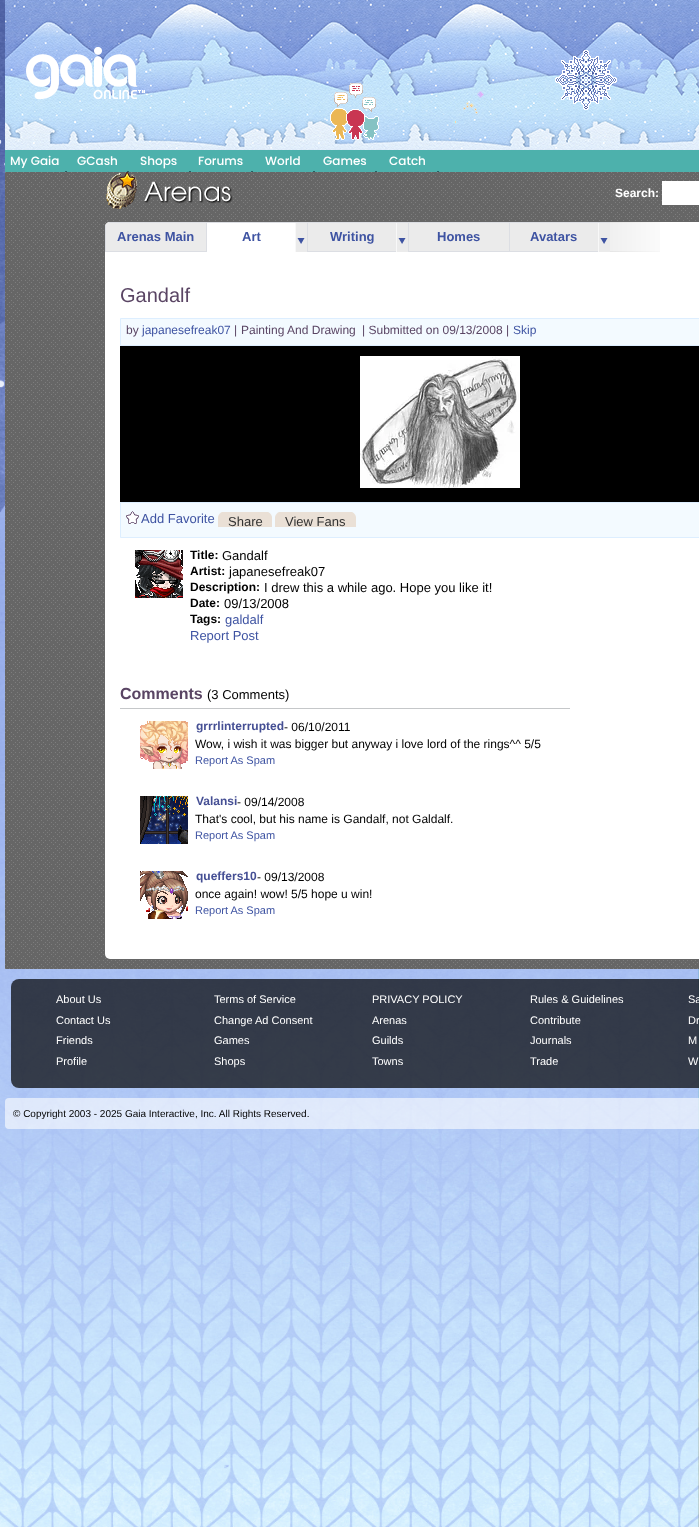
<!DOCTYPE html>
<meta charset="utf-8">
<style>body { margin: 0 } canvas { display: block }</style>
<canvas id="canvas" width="699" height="1527"></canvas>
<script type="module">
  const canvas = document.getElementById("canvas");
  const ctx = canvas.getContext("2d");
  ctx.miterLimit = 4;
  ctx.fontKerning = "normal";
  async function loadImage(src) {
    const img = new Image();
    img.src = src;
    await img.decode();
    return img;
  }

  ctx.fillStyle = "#ffffff";
  ctx.fillRect(0, 0, 699, 1527);
  ctx.drawImage(await loadImage("img1.png"), 698, 969, 1, 558);
  ctx.drawImage(await loadImage("img2.png"), 0, 0, 699, 1527);
  ctx.drawImage(await loadImage("img3.png"), 5, 0, 694, 150);
  ctx.drawImage(await loadImage("img4.png"), 5, 0, 694, 150);
  ctx.drawImage(await loadImage("img5.png"), 26, 46, 119, 54);
  ctx.drawImage(await loadImage("img6.png"), 330, 83, 49, 57);
  ctx.drawImage(await loadImage("img7.png"), 454, 91, 30, 33);
  ctx.drawImage(await loadImage("img8.png"), 555, 50, 62, 60);
  ctx.fillStyle = "#4db1ac";
  ctx.fillRect(5, 150, 694, 22);
  ctx.font = "500 12px Poppins";
  ctx.fillStyle = "#ffffff";
  ctx.fillText("My Gaia", 10, 165);
  ctx.fillText("GCash", 77, 165);
  ctx.fillText("Shops", 140, 165);
  ctx.fillText("Forums", 198, 165);
  ctx.fillText("World", 265, 165);
  ctx.fillText("Games", 323, 165);
  ctx.fillText("Catch", 389, 165);
  ctx.fillStyle = "#265f62";
  ctx.fillRect(65, 171, 2, 1);
  ctx.fillRect(127, 171, 2, 1);
  ctx.fillRect(189, 171, 2, 1);
  ctx.fillRect(251, 171, 2, 1);
  ctx.fillRect(313, 171, 2, 1);
  ctx.fillRect(375, 171, 2, 1);
  ctx.fillRect(437, 171, 2, 1);
  ctx.drawImage(await loadImage("img9.png"), 5, 172, 694, 797);
  ctx.drawImage(await loadImage("img10.png"), 106, 172, 127, 37);
  ctx.font = "bold 12px Liberation Sans";
  ctx.fillStyle = "#ffffff";
  ctx.fillText("Search:", 615, 197);
  ctx.fillRect(662, 181, 37, 24);
  ctx.beginPath();
  ctx.roundRect(105, 222, 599, 737, 5);
  ctx.fill();
  ctx.fillStyle = "#ebebeb";
  ctx.beginPath();
  ctx.roundRect(105, 222, 102, 30, [5, 0, 0, 0]);
  ctx.fill();
  ctx.fillStyle = "#dcdee3";
  ctx.beginPath();
  ctx.moveTo(110, 222);
  ctx.lineTo(107, 223);
  ctx.lineTo(206, 223);
  ctx.lineTo(206, 251);
  ctx.lineTo(106, 251);
  ctx.lineTo(106, 224);
  ctx.bezierCurveTo(105, 225, 105, 226, 105, 227);
  ctx.lineTo(105, 252);
  ctx.lineTo(207, 252);
  ctx.lineTo(207, 222);
  ctx.closePath();
  ctx.fill();
  ctx.font = "bold 13px Liberation Sans";
  ctx.fillStyle = "#3e53a2";
  ctx.fillText("Arenas Main", 117, 241);
  ctx.fillStyle = "#dcdee3";
  ctx.fillRect(206, 222, 102, 1);
  ctx.fillStyle = "#3e53a2";
  ctx.fillText("Art", 242, 241);
  ctx.drawImage(await loadImage("img11.png"), 295, 223, 12, 29);
  ctx.fillStyle = "#ebebeb";
  ctx.fillRect(308, 223, 88, 28);
  ctx.strokeStyle = "#dcdee3";
  ctx.strokeRect(307.5, 222.5, 101, 29);
  ctx.fillStyle = "#3e53a2";
  ctx.fillText("Writing", 330, 241);
  ctx.drawImage(await loadImage("img11.png"), 396, 223, 12, 29);
  ctx.fillStyle = "#ebebeb";
  ctx.beginPath();
  ctx.rect(408.5, 222.5, 101, 29);
  ctx.fill();
  ctx.stroke();
  ctx.fillStyle = "#3e53a2";
  ctx.fillText("Homes", 437, 241);
  ctx.fillStyle = "#ebebeb";
  ctx.fillRect(510, 223, 88, 28);
  ctx.fillStyle = "#dcdee3";
  ctx.fillRect(509, 222, 101, 1);
  ctx.fillRect(509, 251, 89, 1);
  ctx.fillStyle = "#3e53a2";
  ctx.fillText("Avatars", 530, 241);
  ctx.drawImage(await loadImage("img11.png"), 598, 223, 12, 29);
  ctx.drawImage(await loadImage("img12.png"), 610, 222, 50, 30);
  ctx.font = "20px Liberation Sans";
  ctx.fillStyle = "#5a4564";
  ctx.fillText("Gandalf", 120, 302);
  ctx.fillStyle = "#f3faff";
  ctx.beginPath();
  ctx.rect(120.5, 318.5, 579, 27);
  ctx.fill();
  ctx.strokeStyle = "#ddeeff";
  ctx.stroke();
  ctx.font = "12px Liberation Sans";
  ctx.fillStyle = "#5a4564";
  ctx.fillText("by", 126, 334);
  ctx.fillStyle = "#3e53a2";
  ctx.fillText("japanesefreak07", 142, 334);
  ctx.fillStyle = "#5a4564";
  ctx.fillText("|", 234, 334);
  ctx.fillText("Painting And Drawing", 241, 334);
  ctx.fillText("| Submitted on 09/13/2008 |", 362, 334);
  ctx.fillStyle = "#3e53a2";
  ctx.fillText("Skip", 513, 334);
  ctx.fillStyle = "#000000";
  ctx.fillRect(120, 346, 579, 156);
  ctx.drawImage(await loadImage("img13.png"), 360, 356, 160, 132);
  ctx.fillStyle = "#f3faff";
  ctx.beginPath();
  ctx.rect(120.5, 502.5, 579, 35);
  ctx.fill();
  ctx.stroke();
  ctx.drawImage(await loadImage("img14.png"), 126, 511, 13, 13);
  ctx.font = "13px Liberation Sans";
  ctx.fillStyle = "#3e53a2";
  ctx.fillText("Add Favorite", 141, 523);
  ctx.drawImage(await loadImage("img15.png"), 251, 512, 21, 15);
  ctx.drawImage(await loadImage("img16.png"), 218, 512, 33, 15);
  ctx.fillStyle = "#333333";
  ctx.fillText("Share", 228, 526);
  ctx.drawImage(await loadImage("img17.png"), 334, 512, 22, 15);
  ctx.drawImage(await loadImage("img18.png"), 275, 512, 59, 15);
  ctx.fillText("View Fans", 285, 526);
  ctx.drawImage(await loadImage("img19.png"), 135, 550, 48, 48);
  ctx.font = "bold 12px Liberation Sans";
  ctx.fillStyle = "#000000";
  ctx.fillText("Title:", 190, 559);
  ctx.font = "13px Liberation Sans";
  ctx.fillText("Gandalf", 222, 560);
  ctx.font = "bold 12px Liberation Sans";
  ctx.fillText("Artist:", 190, 575);
  ctx.font = "13px Liberation Sans";
  ctx.fillText("japanesefreak07", 229, 576);
  ctx.font = "bold 12px Liberation Sans";
  ctx.fillText("Description:", 190, 591);
  ctx.font = "13px Liberation Sans";
  ctx.fillText("I drew this a while ago. Hope you like it!", 264, 592);
  ctx.font = "bold 12px Liberation Sans";
  ctx.fillText("Date:", 190, 607);
  ctx.font = "13px Liberation Sans";
  ctx.fillText("09/13/2008", 224, 608);
  ctx.font = "bold 12px Liberation Sans";
  ctx.fillText("Tags:", 190, 623);
  ctx.font = "13px Liberation Sans";
  ctx.fillStyle = "#3e53a2";
  ctx.fillText("galdalf", 225, 624);
  ctx.fillText("Report Post", 190, 640);
  ctx.font = "bold 16px Liberation Sans";
  ctx.fillStyle = "#5a4564";
  ctx.fillText("Comments", 120, 699);
  ctx.font = "13px Liberation Sans";
  ctx.fillStyle = "#000000";
  ctx.fillText("(3 Comments)", 207, 699);
  ctx.fillStyle = "#c5c7c9";
  ctx.fillRect(120, 708, 450, 1);
  ctx.drawImage(await loadImage("img20.png"), 140, 721, 48, 48);
  ctx.font = "bold 12px Liberation Sans";
  ctx.fillStyle = "#454f94";
  ctx.fillText("grrrlinterrupted", 196, 730);
  ctx.font = "12px Liberation Sans";
  ctx.fillStyle = "#000000";
  ctx.fillText("- 06/10/2011", 284, 731);
  ctx.fillText("Wow, i wish it was bigger but anyway i love lord of the rings^^ 5/5", 195, 748);
  ctx.font = "11px Liberation Sans";
  ctx.fillStyle = "#3e53a2";
  ctx.fillText("Report As Spam", 195, 764);
  ctx.drawImage(await loadImage("img21.png"), 140, 796, 48, 48);
  ctx.font = "bold 12px Liberation Sans";
  ctx.fillStyle = "#454f94";
  ctx.fillText("Valansi", 196, 805);
  ctx.font = "12px Liberation Sans";
  ctx.fillStyle = "#000000";
  ctx.fillText("- 09/14/2008", 237, 806);
  ctx.fillText("That's cool, but his name is Gandalf, not Galdalf.", 195, 823);
  ctx.font = "11px Liberation Sans";
  ctx.fillStyle = "#3e53a2";
  ctx.fillText("Report As Spam", 195, 839);
  ctx.drawImage(await loadImage("img22.png"), 140, 871, 48, 48);
  ctx.font = "bold 12px Liberation Sans";
  ctx.fillStyle = "#454f94";
  ctx.fillText("queffers10", 196, 880);
  ctx.font = "12px Liberation Sans";
  ctx.fillStyle = "#000000";
  ctx.fillText("- 09/13/2008", 257, 881);
  ctx.fillText("once again! wow! 5/5 hope u win!", 195, 898);
  ctx.font = "11px Liberation Sans";
  ctx.fillStyle = "#3e53a2";
  ctx.fillText("Report As Spam", 195, 914);
  ctx.fillStyle = "rgba(0, 0, 0, 0.7)";
  ctx.beginPath();
  ctx.roundRect(11, 979, 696, 109, 8);
  ctx.fill();
  ctx.fillStyle = "#ffffff";
  ctx.fillText("About Us", 56, 1003);
  ctx.fillText("Terms of Service", 214, 1003);
  ctx.fillText("PRIVACY POLICY", 372, 1003);
  ctx.fillText("Rules & Guidelines", 530, 1003);
  ctx.fillText("Sa", 688, 1003);
  ctx.fillText("Contact Us", 56, 1024);
  ctx.fillText("Change Ad Consent", 214, 1024);
  ctx.fillText("Arenas", 372, 1024);
  ctx.fillText("Contribute", 530, 1024);
  ctx.fillText("Dr", 688, 1024);
  ctx.fillText("Friends", 56, 1044);
  ctx.fillText("Games", 214, 1044);
  ctx.fillText("Guilds", 372, 1044);
  ctx.fillText("Journals", 530, 1044);
  ctx.fillText("M", 688, 1044);
  ctx.fillText("Profile", 56, 1065);
  ctx.fillText("Shops", 214, 1065);
  ctx.fillText("Towns", 372, 1065);
  ctx.fillText("Trade", 530, 1065);
  ctx.fillText("W", 688, 1065);
  ctx.fillStyle = "rgba(255, 255, 255, 0.6)";
  ctx.beginPath();
  ctx.roundRect(5, 1098, 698, 31, 4);
  ctx.fill();
  ctx.font = "10px Liberation Sans";
  ctx.fillStyle = "#000000";
  ctx.fillText("© Copyright 2003 - 2025 Gaia Interactive, Inc. All Rights Reserved.", 13, 1117);
</script>
